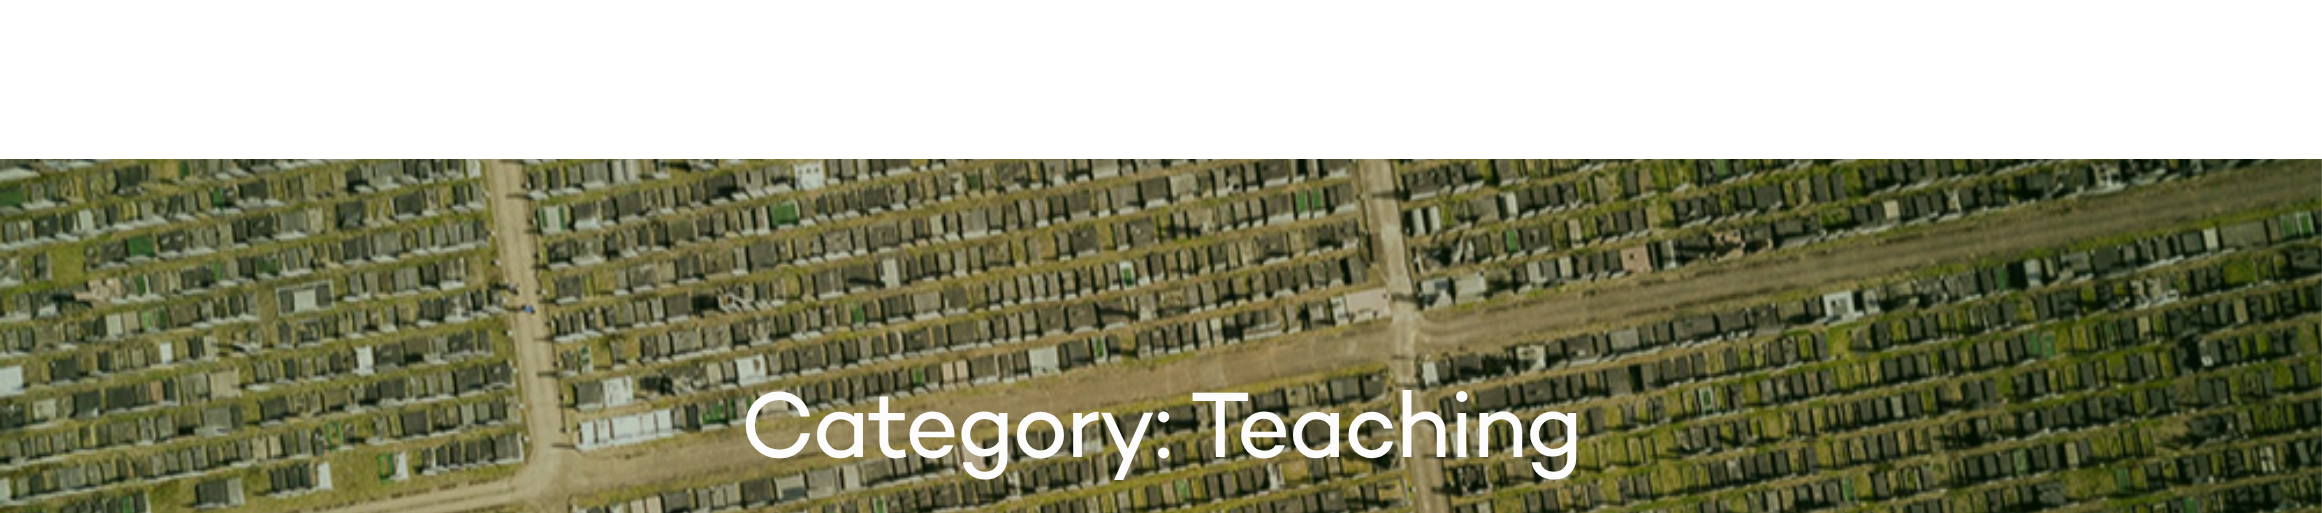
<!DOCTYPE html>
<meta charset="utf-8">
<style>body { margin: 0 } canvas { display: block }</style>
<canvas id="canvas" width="2322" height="513"></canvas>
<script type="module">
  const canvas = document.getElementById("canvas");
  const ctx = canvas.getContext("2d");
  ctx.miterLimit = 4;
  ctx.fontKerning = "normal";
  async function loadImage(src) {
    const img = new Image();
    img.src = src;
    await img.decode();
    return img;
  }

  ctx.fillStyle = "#ffffff";
  ctx.fillRect(0, 0, 2322, 513);
  ctx.drawImage(await loadImage("img1.png"), 0, 159, 2322, 354);
  ctx.letterSpacing = "-2px";
  ctx.font = "94.5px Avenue";
  ctx.fillStyle = "#fcfcfc";
  ctx.fillText("Category:", 740, 457);
  ctx.fillText("Teaching", 1190, 457);
</script>
